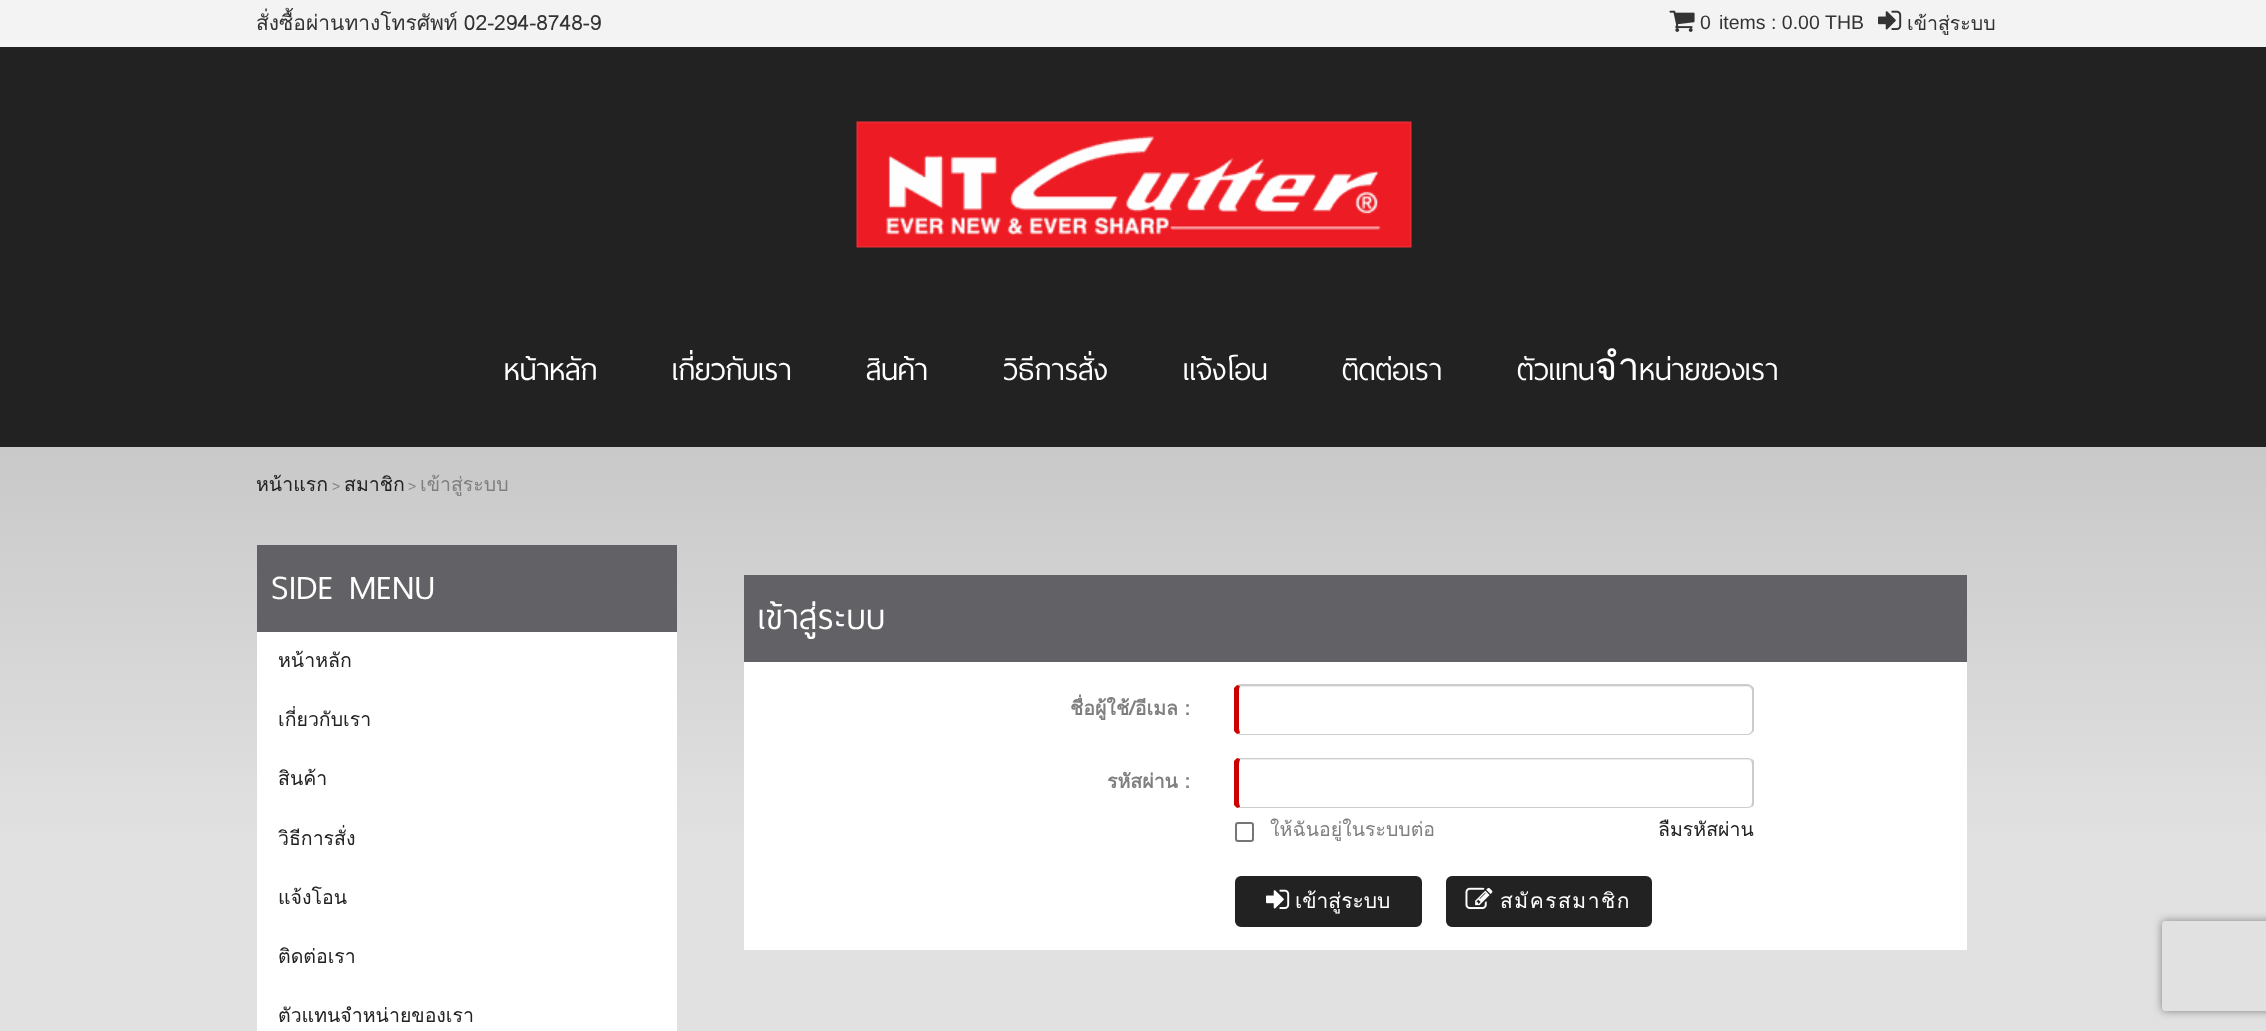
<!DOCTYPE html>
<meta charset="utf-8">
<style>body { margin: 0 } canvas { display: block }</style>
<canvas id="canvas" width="2266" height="1031"></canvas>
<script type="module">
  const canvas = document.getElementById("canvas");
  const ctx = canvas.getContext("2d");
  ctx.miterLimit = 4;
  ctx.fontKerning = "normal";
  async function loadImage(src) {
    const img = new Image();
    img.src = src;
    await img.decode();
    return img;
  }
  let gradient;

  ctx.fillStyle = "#ffffff";
  ctx.fillRect(0, 0, 2266, 1031);
  gradient = ctx.createLinearGradient(1133, 0, 1133, 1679);
  gradient.addColorStop(0, "#adadad");
  gradient.addColorStop(0.5, "#e1e1e1");
  ctx.fillStyle = gradient;
  ctx.fillRect(0, 447, 2266, 584);
  ctx.fillStyle = "#f3f3f3";
  ctx.fillRect(0, 0, 2266, 47);
  ctx.wordSpacing = "-1px";
  ctx.font = "21px Loma";
  ctx.fillStyle = "#333333";
  ctx.fillText("สั่งซื้อผ่านทางโทรศัพท์ 02-294-8748-9", 256, 30);
  ctx.drawImage(await loadImage("img1.png"), 1669, 10, 26, 22);
  ctx.wordSpacing = "0px";
  ctx.font = "19.5px Liberation Sans";
  ctx.fillText("0", 1700, 29);
  ctx.fillText("items : 0.00", 1719, 29);
  ctx.fillText("THB", 1825, 29);
  ctx.drawImage(await loadImage("img2.png"), 1878, 10, 24, 20);
  ctx.font = "19.5px Loma";
  ctx.fillText("เข้าสู่ระบบ", 1907, 30);
  ctx.fillStyle = "#222222";
  ctx.fillRect(0, 47, 2266, 400);
  ctx.drawImage(await loadImage("img3.png"), 856, 121, 556, 127);
  ctx.font = "39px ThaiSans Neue";
  ctx.fillStyle = "#ffffff";
  ctx.fillText("หน้าหลัก", 504, 380);
  ctx.fillText("เกี่ยวกับเรา", 672, 380);
  ctx.fillText("สินค้า", 866, 380);
  ctx.fillText("วิธีการสั่ง", 1003, 380);
  ctx.fillText("แจ้งโอน", 1183, 380);
  ctx.fillText("ติดต่อเรา", 1342, 380);
  ctx.fillText("ตัวแทนจำหน่ายของเรา", 1517, 380);
  ctx.font = "19.5px Loma";
  ctx.fillStyle = "#222222";
  ctx.fillText("หน้าแรก", 256, 491);
  ctx.font = "14px Liberation Sans";
  ctx.fillStyle = "#7f7f7f";
  ctx.fillText(">", 332, 491);
  ctx.font = "19.5px Loma";
  ctx.fillStyle = "#222222";
  ctx.fillText("สมาชิก", 344, 491);
  ctx.font = "14px Liberation Sans";
  ctx.fillStyle = "#7f7f7f";
  ctx.fillText(">", 408, 491);
  ctx.font = "19.5px Loma";
  ctx.fillText("เข้าสู่ระบบ", 420, 491);
  ctx.fillStyle = "#626266";
  ctx.fillRect(257, 545, 420, 87);
  ctx.letterSpacing = "0.9px";
  ctx.font = "45px ThaiSans Neue";
  ctx.fillStyle = "#ffffff";
  ctx.fillText("SIDE MENU", 271, 599);
  ctx.fillRect(257, 632, 420, 399);
  ctx.letterSpacing = "0px";
  ctx.font = "19.5px Loma";
  ctx.fillStyle = "#222222";
  ctx.fillText("หน้าหลัก", 278, 667);
  ctx.fillText("เกี่ยวกับเรา", 278, 726);
  ctx.fillText("สินค้า", 278, 785);
  ctx.fillText("วิธีการสั่ง", 278, 845);
  ctx.fillText("แจ้งโอน", 278, 904);
  ctx.fillText("ติดต่อเรา", 278, 963);
  ctx.fillText("ตัวแทนจำหน่ายของเรา", 278, 1022);
  ctx.fillStyle = "#626266";
  ctx.fillRect(744, 575, 1223, 87);
  ctx.save();
  ctx.beginPath();
  ctx.rect(759, 590, 126, 57);
  ctx.clip();
  ctx.letterSpacing = "0.9px";
  ctx.font = "45px ThaiSans Neue";
  ctx.fillStyle = "#ffffff";
  ctx.fillText("เข้าสู่ระบบ", 758, 629);
  ctx.restore();
  ctx.fillStyle = "#ffffff";
  ctx.fillRect(744, 662, 1223, 288);
  ctx.font = "bold 19.5px Loma";
  ctx.fillStyle = "#7f7f7f";
  ctx.fillText("ชื่อผู้ใช้/อีเมล :", 1070, 715);
  ctx.fillStyle = "#ececec";
  ctx.beginPath();
  ctx.moveTo(1240, 687);
  ctx.lineTo(1748, 687);
  ctx.bezierCurveTo(1750, 687, 1752, 689, 1752, 692);
  ctx.lineTo(1752, 690);
  ctx.bezierCurveTo(1752, 688, 1750, 686, 1748, 686);
  ctx.lineTo(1240, 686);
  ctx.bezierCurveTo(1240, 686, 1239, 688, 1239, 690);
  ctx.lineTo(1239, 692);
  ctx.closePath();
  ctx.fill();
  ctx.fillStyle = "#cccccc";
  ctx.beginPath();
  ctx.moveTo(1240, 684);
  ctx.lineTo(1237, 685);
  ctx.lineTo(1240, 686);
  ctx.lineTo(1748, 686);
  ctx.lineTo(1750, 687);
  ctx.lineTo(1752, 686);
  ctx.bezierCurveTo(1751, 685, 1749, 684, 1748, 684);
  ctx.closePath();
  ctx.fill();
  ctx.beginPath();
  ctx.moveTo(1754, 731);
  ctx.lineTo(1752, 733);
  ctx.lineTo(1751, 732);
  ctx.bezierCurveTo(1752, 731, 1752, 730, 1752, 729);
  ctx.lineTo(1752, 690);
  ctx.bezierCurveTo(1752, 689, 1751, 688, 1750, 687);
  ctx.lineTo(1752, 686);
  ctx.lineTo(1754, 688);
  ctx.closePath();
  ctx.fill();
  ctx.beginPath();
  ctx.moveTo(1240, 735);
  ctx.lineTo(1748, 735);
  ctx.bezierCurveTo(1749, 735, 1751, 734, 1752, 733);
  ctx.lineTo(1751, 732);
  ctx.bezierCurveTo(1750, 733, 1749, 734, 1748, 734);
  ctx.lineTo(1240, 734);
  ctx.lineTo(1240, 733);
  ctx.lineTo(1237, 734);
  ctx.closePath();
  ctx.fill();
  ctx.fillStyle = "#cc0000";
  ctx.beginPath();
  ctx.moveTo(1240, 686);
  ctx.bezierCurveTo(1240, 686, 1239, 688, 1239, 690);
  ctx.lineTo(1239, 729);
  ctx.lineTo(1240, 733);
  ctx.lineTo(1237, 734);
  ctx.lineTo(1234, 731);
  ctx.lineTo(1234, 688);
  ctx.lineTo(1237, 685);
  ctx.closePath();
  ctx.fill();
  ctx.fillStyle = "#7f7f7f";
  ctx.fillText("รหัสผ่าน :", 1107, 788);
  ctx.fillStyle = "#ececec";
  ctx.beginPath();
  ctx.moveTo(1240, 760);
  ctx.lineTo(1748, 760);
  ctx.bezierCurveTo(1750, 760, 1752, 763, 1752, 765);
  ctx.lineTo(1752, 764);
  ctx.bezierCurveTo(1752, 761, 1750, 759, 1748, 759);
  ctx.lineTo(1240, 759);
  ctx.bezierCurveTo(1240, 759, 1239, 761, 1239, 764);
  ctx.lineTo(1239, 765);
  ctx.closePath();
  ctx.fill();
  ctx.fillStyle = "#cccccc";
  ctx.beginPath();
  ctx.moveTo(1240, 758);
  ctx.lineTo(1237, 758);
  ctx.lineTo(1240, 759);
  ctx.lineTo(1748, 759);
  ctx.lineTo(1751, 760);
  ctx.lineTo(1752, 759);
  ctx.lineTo(1748, 758);
  ctx.closePath();
  ctx.fill();
  ctx.beginPath();
  ctx.moveTo(1752, 759);
  ctx.lineTo(1754, 761);
  ctx.lineTo(1754, 805);
  ctx.lineTo(1752, 807);
  ctx.lineTo(1751, 806);
  ctx.bezierCurveTo(1751, 805, 1752, 804, 1752, 802);
  ctx.lineTo(1752, 764);
  ctx.bezierCurveTo(1752, 762, 1751, 761, 1751, 760);
  ctx.closePath();
  ctx.fill();
  ctx.beginPath();
  ctx.moveTo(1752, 807);
  ctx.lineTo(1748, 808);
  ctx.lineTo(1240, 808);
  ctx.lineTo(1237, 808);
  ctx.lineTo(1240, 807);
  ctx.lineTo(1748, 807);
  ctx.lineTo(1751, 806);
  ctx.closePath();
  ctx.fill();
  ctx.fillStyle = "#cc0000";
  ctx.beginPath();
  ctx.moveTo(1234, 761);
  ctx.bezierCurveTo(1235, 760, 1236, 759, 1237, 758);
  ctx.lineTo(1240, 759);
  ctx.bezierCurveTo(1240, 760, 1239, 762, 1239, 764);
  ctx.lineTo(1239, 802);
  ctx.bezierCurveTo(1239, 804, 1240, 806, 1240, 807);
  ctx.lineTo(1237, 808);
  ctx.bezierCurveTo(1236, 807, 1235, 806, 1234, 805);
  ctx.closePath();
  ctx.fill();
  ctx.beginPath();
  ctx.roundRect(1236, 823, 17, 18, 2);
  ctx.strokeStyle = "#767676";
  ctx.lineWidth = 2;
  ctx.stroke();
  ctx.font = "19.5px Loma";
  ctx.fillStyle = "#7f7f7f";
  ctx.fillText("ให้ฉันอยู่ในระบบต่อ", 1270, 836);
  ctx.fillStyle = "#222222";
  ctx.fillText("ลืมรหัสผ่าน", 1658, 836);
  ctx.beginPath();
  ctx.roundRect(1236, 877, 185, 49, 5);
  ctx.fill();
  ctx.strokeStyle = "#222222";
  ctx.stroke();
  ctx.drawImage(await loadImage("img4.png"), 1266, 889, 24, 20);
  ctx.font = "21px Loma";
  ctx.fillStyle = "#ffffff";
  ctx.fillText("เข้าสู่ระบบ", 1295, 908);
  ctx.fillStyle = "#222222";
  ctx.beginPath();
  ctx.roundRect(1447, 877, 204, 49, 5);
  ctx.fill();
  ctx.stroke();
  ctx.drawImage(await loadImage("img5.png"), 1465, 887, 28, 22);
  ctx.letterSpacing = "1.5px";
  ctx.fillStyle = "#ffffff";
  ctx.fillText("สมัครสมาชิก", 1500, 908);
  ctx.save();
  ctx.beginPath();
  ctx.moveTo(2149, 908);
  ctx.lineTo(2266, 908);
  ctx.lineTo(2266, 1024);
  ctx.lineTo(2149, 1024);
  ctx.closePath();
  ctx.moveTo(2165, 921);
  ctx.lineTo(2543, 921);
  ctx.bezierCurveTo(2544.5, 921, 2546, 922.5, 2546, 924);
  ctx.lineTo(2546, 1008);
  ctx.bezierCurveTo(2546, 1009.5, 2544.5, 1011, 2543, 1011);
  ctx.lineTo(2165, 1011);
  ctx.bezierCurveTo(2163.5, 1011, 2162, 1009.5, 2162, 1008);
  ctx.lineTo(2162, 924);
  ctx.bezierCurveTo(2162, 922.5, 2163.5, 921, 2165, 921);
  ctx.closePath();
  ctx.clip("evenodd");
  ctx.fillStyle = "#808080";
  ctx.filter = "blur(4px)";
  ctx.beginPath();
  ctx.roundRect(2162, 921, 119, 90, 3);
  ctx.fill();
  ctx.filter = "none";
  ctx.restore();
</script>
